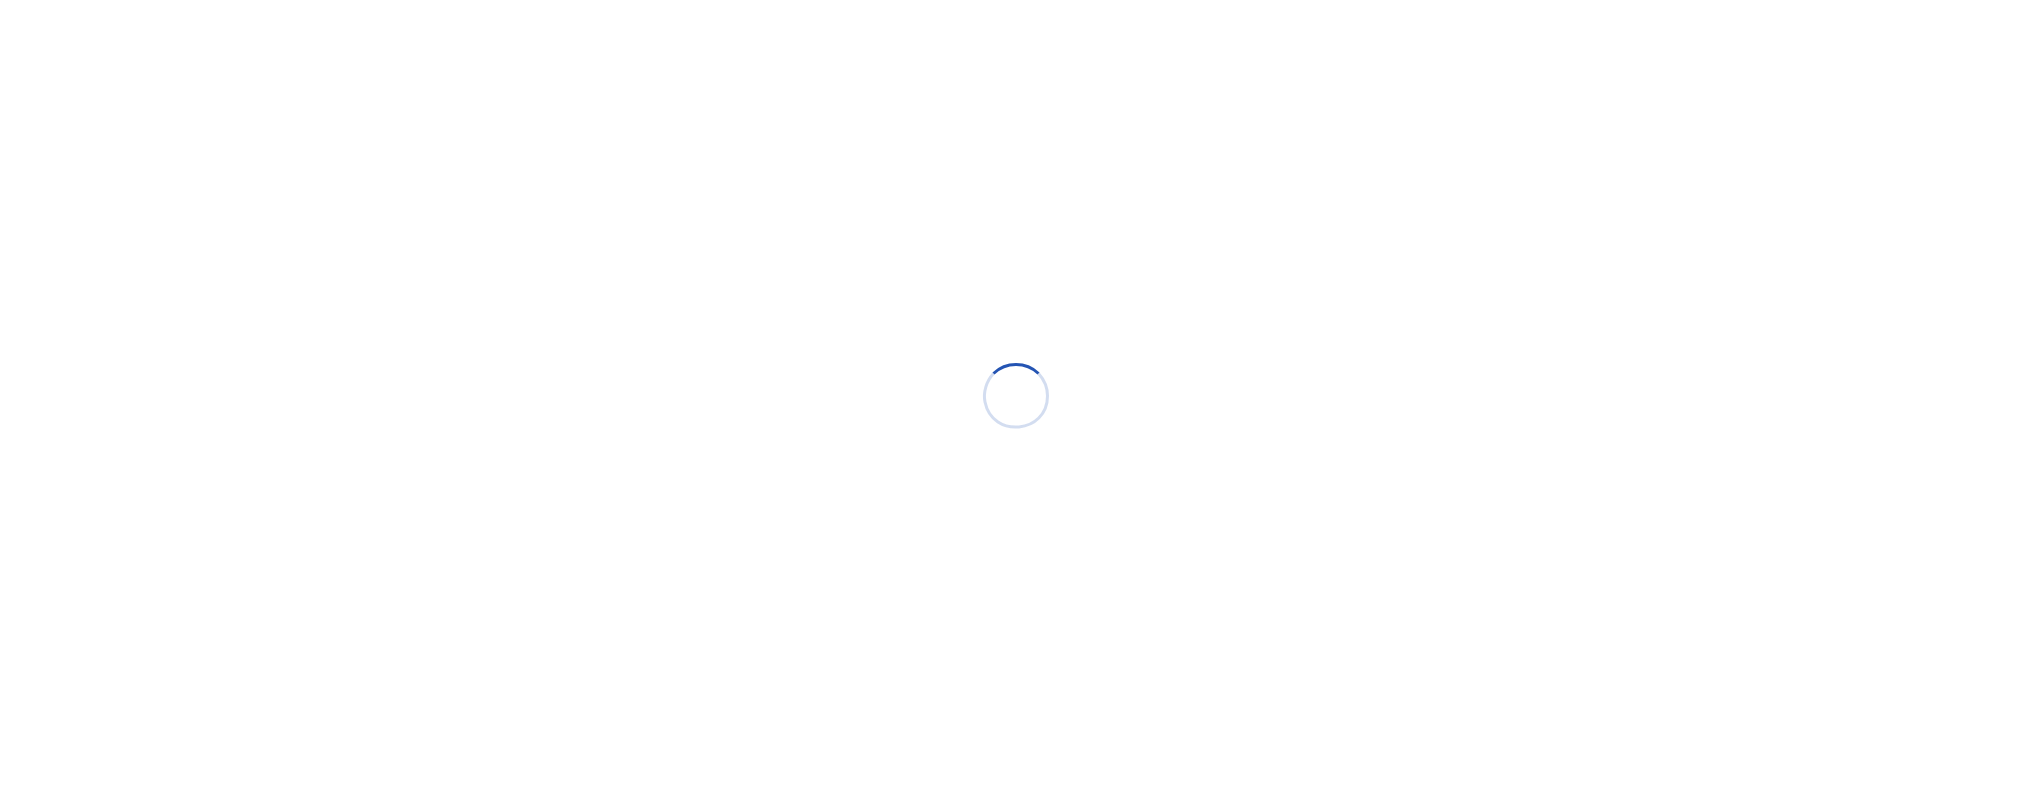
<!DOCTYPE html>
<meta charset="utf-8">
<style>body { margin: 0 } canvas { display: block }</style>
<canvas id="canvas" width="2031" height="792"></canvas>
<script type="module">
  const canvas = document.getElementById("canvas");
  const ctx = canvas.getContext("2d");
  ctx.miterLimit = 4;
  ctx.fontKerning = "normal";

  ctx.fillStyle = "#ffffff";
  ctx.fillRect(0, 0, 2031, 792);
  ctx.beginPath();
  ctx.moveTo(993.5, 373.5);
  ctx.bezierCurveTo(1006, 361.5, 1026, 361.5, 1038.5, 373.5);
  ctx.strokeStyle = "#2454b3";
  ctx.lineWidth = 3;
  ctx.stroke();
  ctx.beginPath();
  ctx.moveTo(1038.5, 373.5);
  ctx.bezierCurveTo(1044, 379.5, 1047.5, 387.5, 1047.5, 396);
  ctx.bezierCurveTo(1047.5, 433.5, 992.5, 439, 985, 402);
  ctx.bezierCurveTo(983, 392, 986.5, 381, 993.5, 373.5);
  ctx.strokeStyle = "rgba(36, 84, 179, 0.2)";
  ctx.stroke();
</script>
